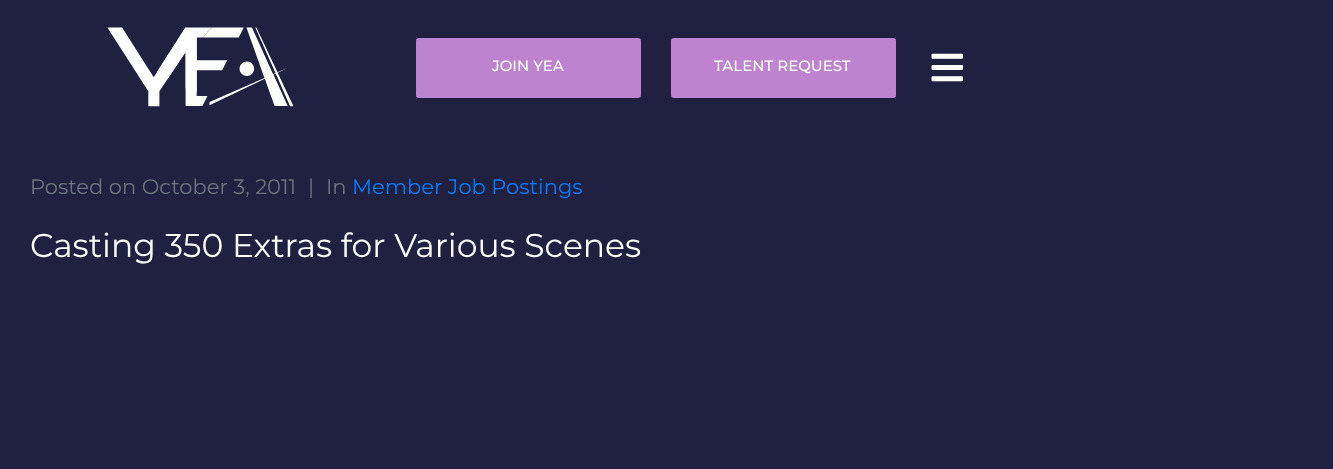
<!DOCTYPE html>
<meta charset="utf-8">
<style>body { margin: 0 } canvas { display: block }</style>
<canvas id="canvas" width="1333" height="469"></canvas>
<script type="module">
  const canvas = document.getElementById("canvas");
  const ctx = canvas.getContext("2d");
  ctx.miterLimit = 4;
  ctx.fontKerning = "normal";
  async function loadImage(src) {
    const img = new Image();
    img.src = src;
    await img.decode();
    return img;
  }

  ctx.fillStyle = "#202040";
  ctx.fillRect(0, 0, 1333, 469);
  ctx.drawImage(await loadImage("img1.png"), 107, 27, 187, 80);
  ctx.fillStyle = "#bd83ce";
  ctx.beginPath();
  ctx.roundRect(417, 39, 223, 58, 2);
  ctx.fill();
  ctx.strokeStyle = "#bd83ce";
  ctx.lineWidth = 2;
  ctx.stroke();
  ctx.font = "500 15px Montserrat";
  ctx.fillStyle = "#ffffff";
  ctx.fillText("JOIN YEA", 492, 71);
  ctx.fillStyle = "#bd83ce";
  ctx.beginPath();
  ctx.roundRect(672, 39, 223, 58, 2);
  ctx.fill();
  ctx.stroke();
  ctx.fillStyle = "#ffffff";
  ctx.fillText("TALENT REQUEST", 714, 71);
  ctx.drawImage(await loadImage("img2.png"), 931, 53, 32, 29);
  ctx.font = "21px Montserrat";
  ctx.fillStyle = "#6c757d";
  ctx.fillText("Posted on October 3, 2011", 30, 194);
  ctx.fillText("|", 308, 194);
  ctx.fillText("In", 326, 194);
  ctx.fillStyle = "#007bff";
  ctx.fillText("Member Job Postings", 352, 194);
  ctx.font = "33px Montserrat";
  ctx.fillStyle = "#ffffff";
  ctx.fillText("Casting 350 Extras for Various Scenes", 30, 257);
</script>
